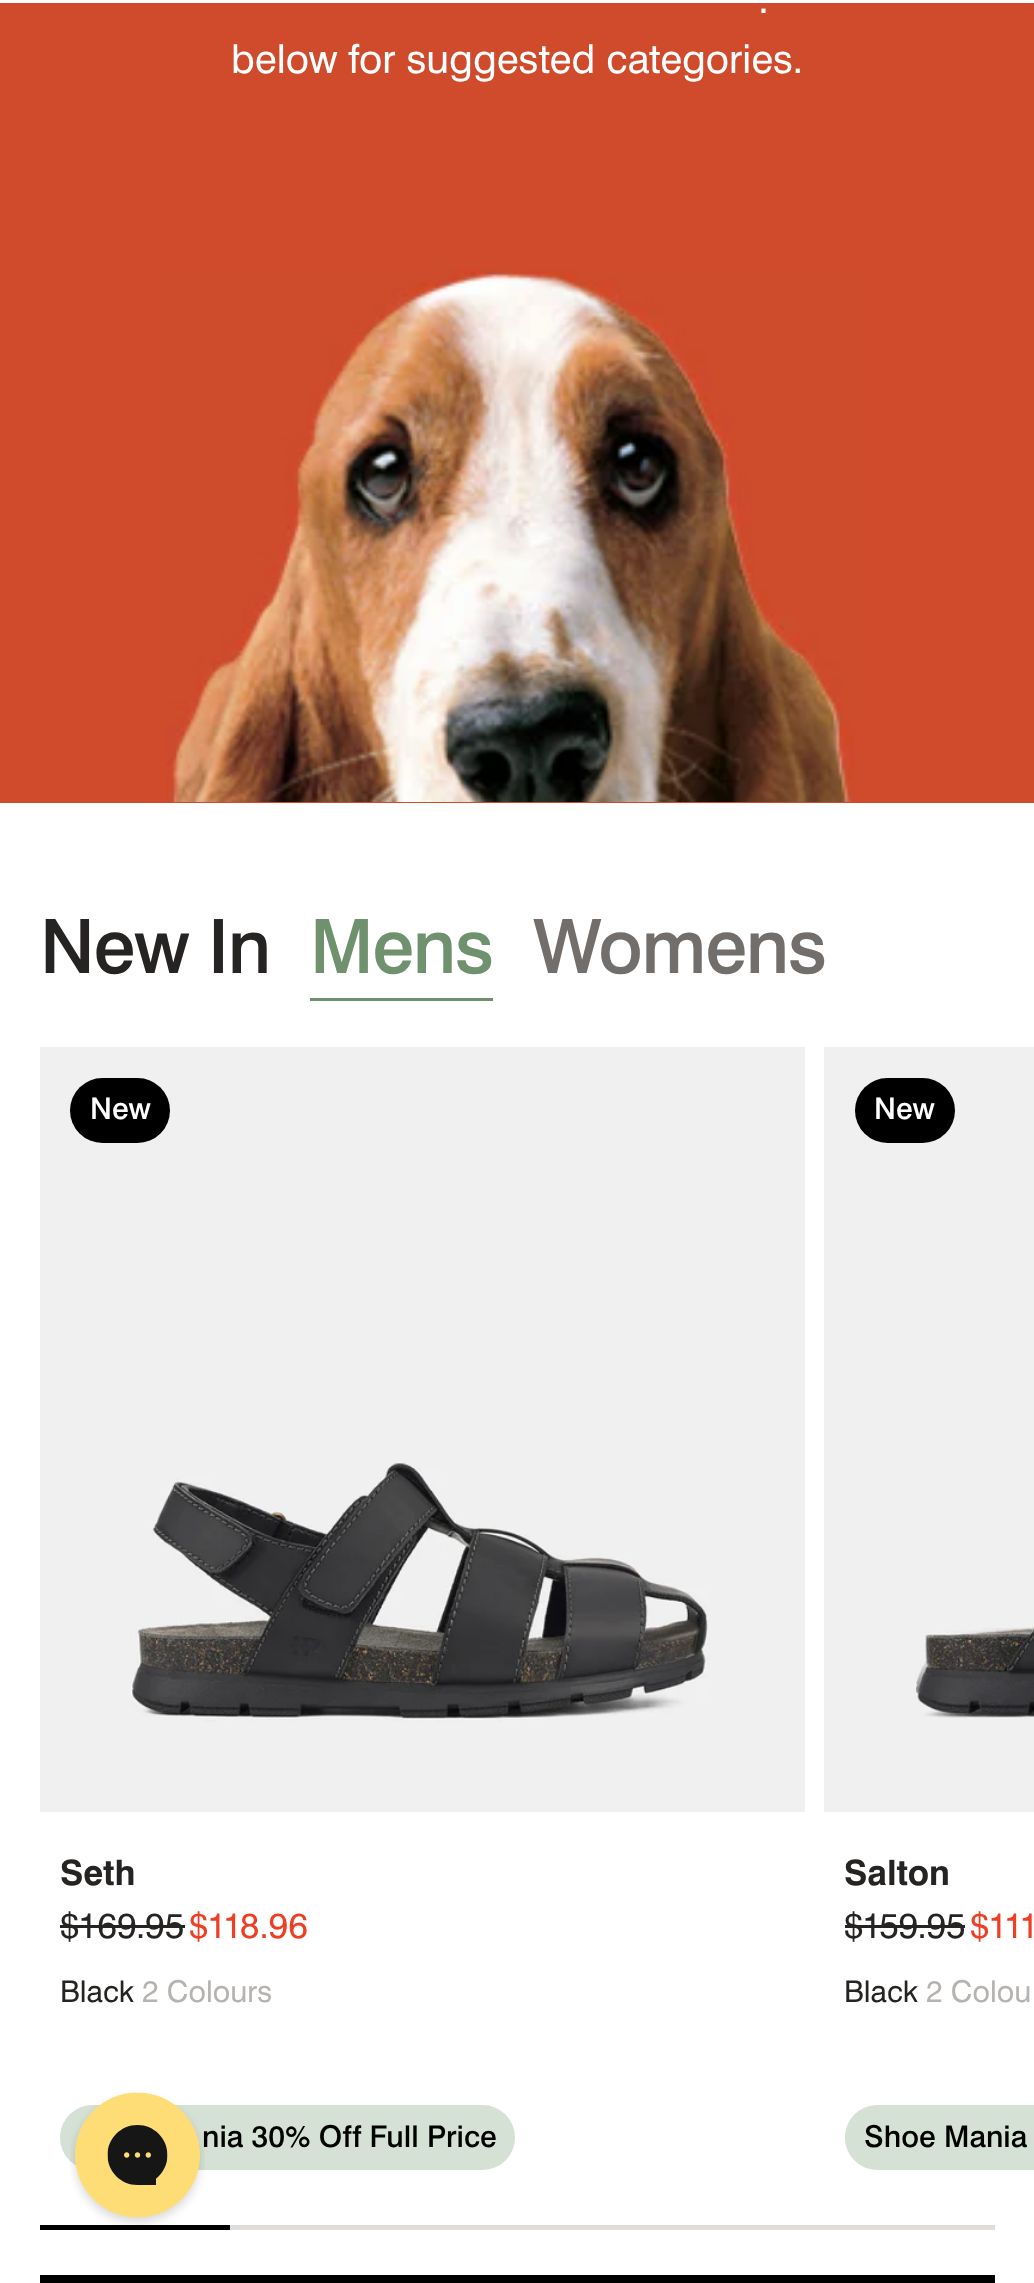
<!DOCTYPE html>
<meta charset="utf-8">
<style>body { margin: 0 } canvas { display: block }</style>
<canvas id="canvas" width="1034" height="2283"></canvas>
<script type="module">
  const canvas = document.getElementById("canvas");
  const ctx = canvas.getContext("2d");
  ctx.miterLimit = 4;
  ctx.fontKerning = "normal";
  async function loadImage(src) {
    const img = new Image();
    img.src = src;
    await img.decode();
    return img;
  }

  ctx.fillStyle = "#ffffff";
  ctx.fillRect(0, 0, 1034, 2283);
  ctx.fillStyle = "#cf4b2c";
  ctx.fillRect(0, 3, 1034, 800);
  ctx.font = "40px 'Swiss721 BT'";
  ctx.fillStyle = "#ffffff";
  ctx.fillText(".", 758, 13);
  ctx.fillText("below for suggested categories.", 231, 73);
  ctx.drawImage(await loadImage("img1.png"), 166, 268, 689, 534);
  ctx.letterSpacing = "-1.25px";
  ctx.font = "500 75px 'Swiss721 BT'";
  ctx.fillStyle = "#262422";
  ctx.fillText("New In", 40, 973);
  ctx.fillStyle = "#70916e";
  ctx.fillText("Mens", 310, 973);
  ctx.fillRect(310, 998, 183, 3);
  ctx.fillStyle = "#726e6b";
  ctx.fillText("Womens", 533, 973);
  ctx.drawImage(await loadImage("img2.png"), 40, 1047, 765, 765);
  ctx.fillStyle = "#000000";
  ctx.beginPath();
  ctx.roundRect(70, 1078, 100, 65, 32.5);
  ctx.fill();
  ctx.letterSpacing = "0px";
  ctx.font = "500 30px 'Swiss721 BT'";
  ctx.fillStyle = "#ffffff";
  ctx.fillText("New", 90, 1119);
  ctx.font = "bold 35px 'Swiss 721'";
  ctx.fillStyle = "#262422";
  ctx.fillText("Seth", 60, 1885);
  ctx.font = "35px 'Swiss721 BT'";
  ctx.fillText("$169.95", 60, 1938);
  ctx.fillRect(60, 1925, 125, 3);
  ctx.fillStyle = "#ee3e24";
  ctx.fillText("$118.96", 189, 1938);
  ctx.font = "30px 'Swiss721 BT'";
  ctx.fillStyle = "#262422";
  ctx.fillText("Black", 60, 2002);
  ctx.fillStyle = "#b6b2af";
  ctx.fillText("2 Colours", 142, 2002);
  ctx.fillStyle = "#d4e1d4";
  ctx.beginPath();
  ctx.roundRect(60, 2105, 455, 65, 32.5);
  ctx.fill();
  ctx.font = "500 30px 'Swiss721 BT'";
  ctx.fillStyle = "#000000";
  ctx.fillText("nia 30% Off Full Price", 202, 2147);
  ctx.drawImage(await loadImage("img3.png"), 824, 1047, 210, 765);
  ctx.drawImage(await loadImage("img4.png"), 915, 1573, 119, 146);
  ctx.beginPath();
  ctx.roundRect(855, 1078, 100, 65, 32.5);
  ctx.fill();
  ctx.fillStyle = "#ffffff";
  ctx.fillText("New", 874, 1119);
  ctx.font = "bold 35px 'Swiss 721'";
  ctx.fillStyle = "#262422";
  ctx.fillText("Salton", 844, 1885);
  ctx.font = "35px 'Swiss721 BT'";
  ctx.fillText("$159.95", 844, 1938);
  ctx.fillRect(845, 1925, 120, 3);
  ctx.fillStyle = "#ee3e24";
  ctx.fillText("$111", 970, 1938);
  ctx.font = "30px 'Swiss721 BT'";
  ctx.fillStyle = "#262422";
  ctx.fillText("Black", 844, 2002);
  ctx.fillStyle = "#b6b2af";
  ctx.fillText("2 Colou", 926, 2002);
  ctx.fillStyle = "#d4e1d4";
  ctx.beginPath();
  ctx.moveTo(877.5, 2105);
  ctx.lineTo(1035, 2105);
  ctx.lineTo(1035, 2170);
  ctx.lineTo(877.5, 2170);
  ctx.bezierCurveTo(859.5, 2170, 845, 2155.5, 845, 2137.5);
  ctx.bezierCurveTo(845, 2119.5, 859.5, 2105, 877.5, 2105);
  ctx.closePath();
  ctx.fill();
  ctx.font = "500 30px 'Swiss721 BT'";
  ctx.fillStyle = "#000000";
  ctx.fillText("Shoe Mania", 864, 2147);
  ctx.fillRect(40, 2225, 190, 5);
  ctx.fillStyle = "#dfdcda";
  ctx.fillRect(230, 2225, 765, 5);
  ctx.fillStyle = "#000000";
  ctx.fillRect(40, 2275, 955, 8);
  ctx.drawImage(await loadImage("img5.png"), 70, 2092, 135, 133);
</script>
